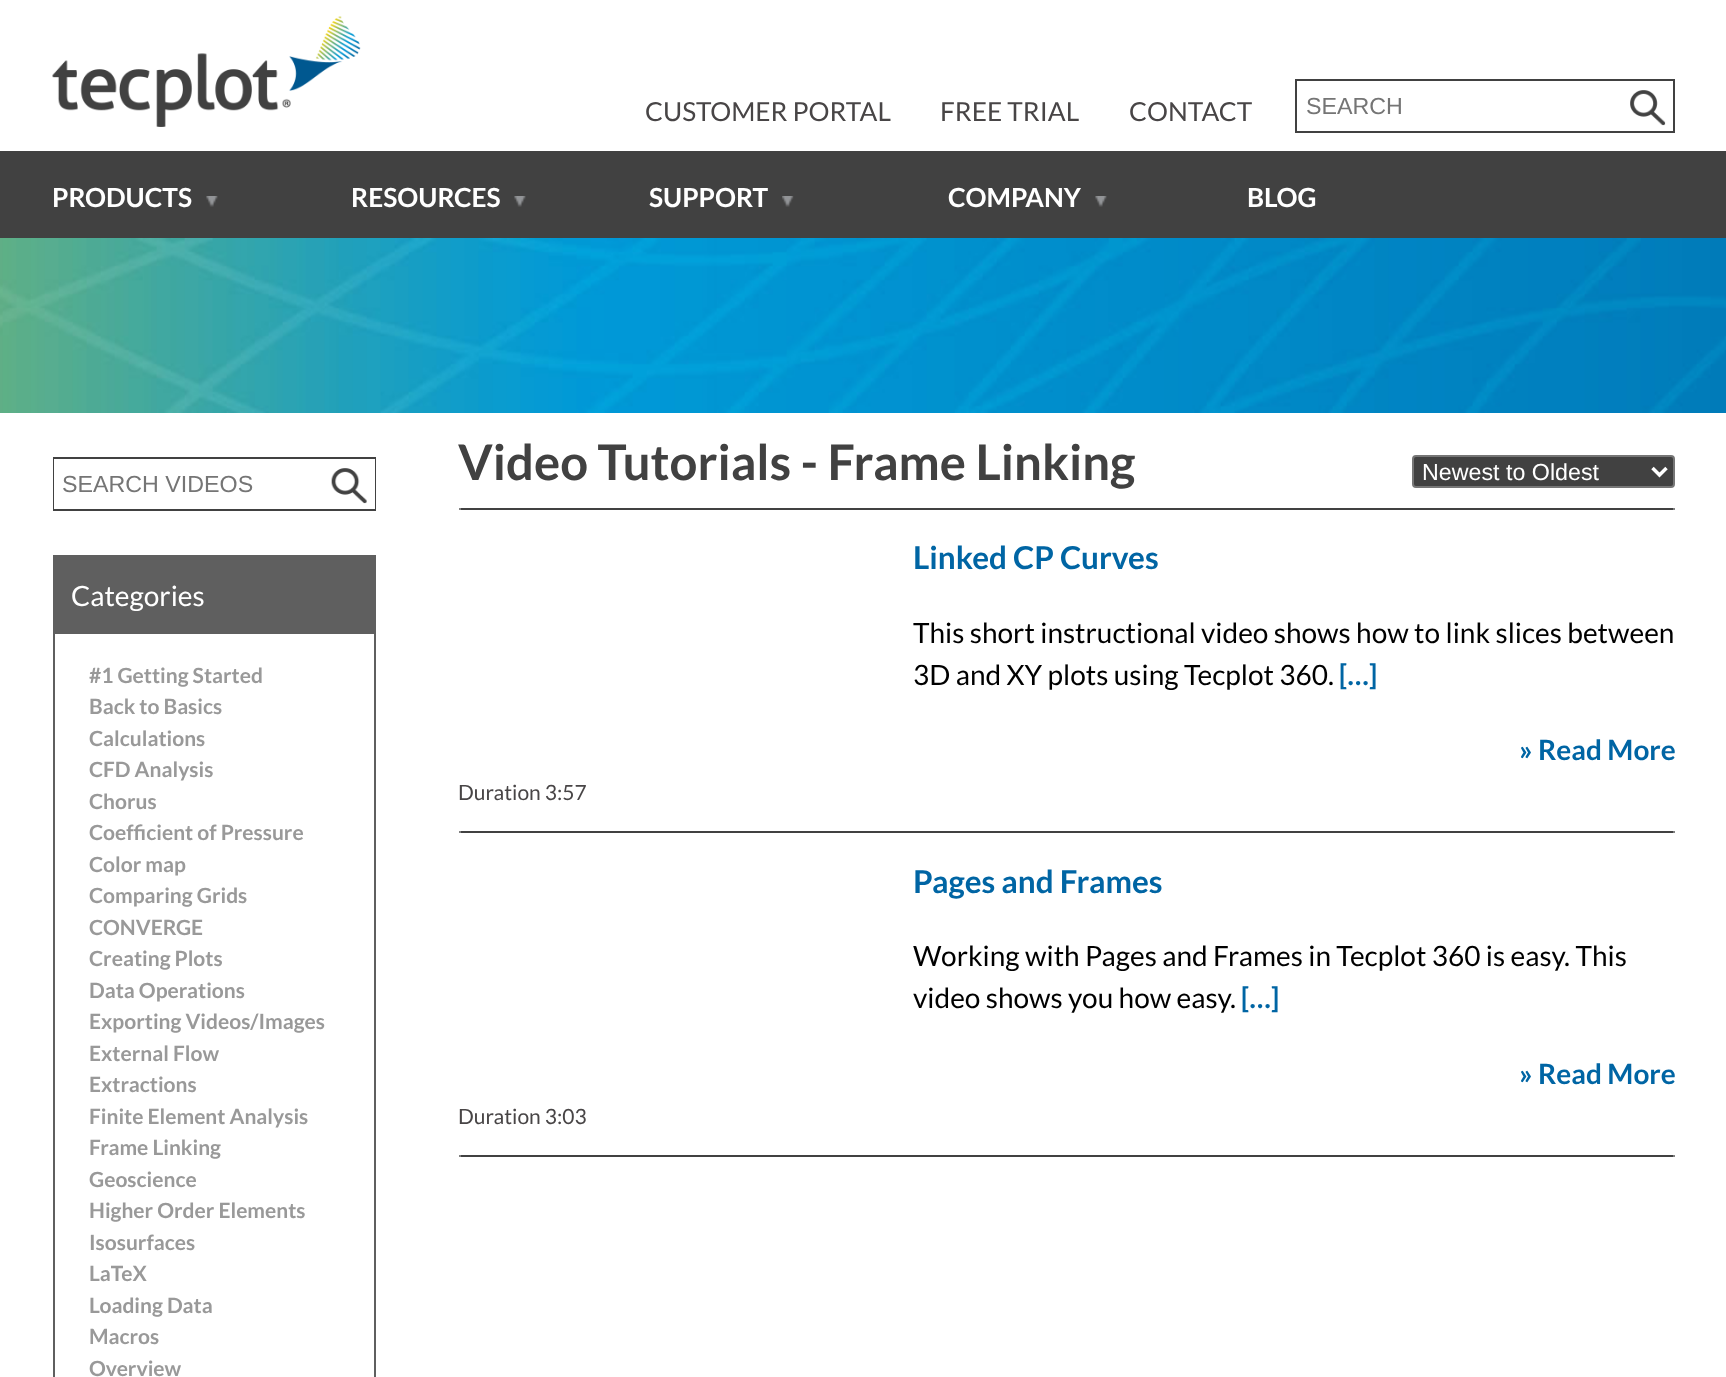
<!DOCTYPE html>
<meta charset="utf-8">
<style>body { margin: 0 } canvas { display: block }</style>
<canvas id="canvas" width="1726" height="1377"></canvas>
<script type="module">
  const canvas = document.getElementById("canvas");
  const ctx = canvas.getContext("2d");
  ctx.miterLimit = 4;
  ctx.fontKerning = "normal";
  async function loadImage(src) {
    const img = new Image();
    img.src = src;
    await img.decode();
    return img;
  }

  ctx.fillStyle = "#ffffff";
  ctx.fillRect(0, 0, 1726, 1377);
  ctx.drawImage(await loadImage("img1.png"), 52, 16, 309, 111);
  ctx.font = "26.25px Lato";
  ctx.fillStyle = "#484546";
  ctx.fillText("CUSTOMER PORTAL", 645, 121);
  ctx.fillText("FREE TRIAL", 940, 121);
  ctx.fillText("CONTACT", 1129, 121);
  ctx.strokeStyle = "#414141";
  ctx.lineWidth = 2;
  ctx.strokeRect(1296, 80, 378, 52);
  ctx.font = "23.25px Liberation Sans";
  ctx.fillStyle = "#757575";
  ctx.fillText("SEARCH", 1306, 114);
  ctx.drawImage(await loadImage("img2.png"), 1630, 90, 36, 36);
  ctx.fillStyle = "#414141";
  ctx.fillRect(0, 151, 1726, 87);
  ctx.font = "bold 26.25px Lato";
  ctx.fillStyle = "#ffffff";
  ctx.fillText("PRODUCTS", 52, 207);
  ctx.drawImage(await loadImage("img3.png"), 206, 196, 12, 11);
  ctx.fillText("RESOURCES", 351, 207);
  ctx.drawImage(await loadImage("img4.png"), 514, 196, 12, 11);
  ctx.fillText("SUPPORT", 649, 207);
  ctx.drawImage(await loadImage("img5.png"), 782, 196, 12, 11);
  ctx.fillText("COMPANY", 948, 207);
  ctx.drawImage(await loadImage("img4.png"), 1095, 196, 12, 11);
  ctx.fillText("BLOG", 1247, 207);
  ctx.drawImage(await loadImage("img6.png"), 0, 238, 1726, 175);
  ctx.strokeRect(54, 458, 321, 52);
  ctx.fillRect(54, 459, 1, 50);
  ctx.font = "23.25px Liberation Sans";
  ctx.fillStyle = "#757575";
  ctx.fillText("SEARCH VIDEOS", 62, 492);
  ctx.fillStyle = "#ffffff";
  ctx.fillRect(374, 459, 1, 50);
  ctx.drawImage(await loadImage("img7.png"), 331, 468, 36, 36);
  ctx.strokeStyle = "#5f5f5f";
  ctx.strokeRect(54, 556, 321, 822);
  ctx.fillStyle = "#5f5f5f";
  ctx.fillRect(55, 557, 319, 77);
  ctx.font = "28px Lato";
  ctx.fillStyle = "#ffffff";
  ctx.fillText("Categories", 71, 606);
  ctx.font = "bold 21px Lato";
  ctx.fillStyle = "#999999";
  ctx.fillText("#1 Getting Started", 89, 683);
  ctx.fillText("Back to Basics", 89, 714);
  ctx.fillText("Calculations", 89, 746);
  ctx.fillText("CFD Analysis", 89, 777);
  ctx.fillText("Chorus", 89, 809);
  ctx.fillText("Coefficient of Pressure", 89, 840);
  ctx.fillText("Color map", 89, 872);
  ctx.fillText("Comparing Grids", 89, 903);
  ctx.fillText("CONVERGE", 89, 935);
  ctx.fillText("Creating Plots", 89, 966);
  ctx.fillText("Data Operations", 89, 998);
  ctx.fillText("Exporting Videos/Images", 89, 1029);
  ctx.fillText("External Flow", 89, 1061);
  ctx.fillText("Extractions", 89, 1092);
  ctx.fillText("Finite Element Analysis", 89, 1124);
  ctx.fillText("Frame Linking", 89, 1155);
  ctx.fillText("Geoscience", 89, 1187);
  ctx.fillText("Higher Order Elements", 89, 1218);
  ctx.fillText("Isosurfaces", 89, 1250);
  ctx.fillText("LaTeX", 89, 1281);
  ctx.fillText("Loading Data", 89, 1313);
  ctx.fillText("Macros", 89, 1344);
  ctx.fillText("Overview", 89, 1376);
  ctx.font = "bold 49px Lato";
  ctx.fillStyle = "#414141";
  ctx.fillText("Video Tutorials - Frame Linking", 458, 480);
  ctx.beginPath();
  ctx.roundRect(1413, 456, 261, 31, 3);
  ctx.fill();
  ctx.strokeStyle = "#767676";
  ctx.stroke();
  ctx.beginPath();
  ctx.moveTo(1652.5, 468);
  ctx.lineTo(1659.5, 475);
  ctx.lineTo(1666.5, 468);
  ctx.strokeStyle = "#ffffff";
  ctx.lineWidth = 3.5;
  ctx.stroke();
  ctx.font = "23.25px Liberation Sans";
  ctx.fillStyle = "#ffffff";
  ctx.fillText("Newest to Oldest", 1422, 480);
  ctx.fillStyle = "#414141";
  ctx.fillRect(459, 508, 1216, 2);
  ctx.fillStyle = "#808080";
  ctx.fillRect(1673, 508, 2, 2);
  ctx.fillRect(459, 508, 2, 2);
  ctx.font = "bold 31.5px Lato";
  ctx.fillStyle = "#0065a4";
  ctx.fillText("Linked CP Curves", 913, 569);
  ctx.font = "28px Lato";
  ctx.fillStyle = "#000000";
  ctx.fillText("This short instructional video shows how to link slices between", 913, 643);
  ctx.fillText("3D and XY plots using Tecplot 360.", 913, 685);
  ctx.font = "bold 28px Lato";
  ctx.fillStyle = "#0065a4";
  ctx.fillText("[…]", 1339, 685);
  ctx.fillText("» Read More", 1519, 760);
  ctx.font = "21px Lato";
  ctx.fillStyle = "#484546";
  ctx.fillText("Duration 3:57", 458, 800);
  ctx.fillStyle = "#414141";
  ctx.fillRect(459, 831, 1216, 2);
  ctx.fillStyle = "#808080";
  ctx.fillRect(1673, 831, 2, 2);
  ctx.fillRect(459, 831, 2, 2);
  ctx.font = "bold 31.5px Lato";
  ctx.fillStyle = "#0065a4";
  ctx.fillText("Pages and Frames", 913, 893);
  ctx.font = "28px Lato";
  ctx.fillStyle = "#000000";
  ctx.fillText("Working with Pages and Frames in Tecplot 360 is easy. This", 913, 966);
  ctx.fillText("video shows you how easy.", 913, 1008);
  ctx.font = "bold 28px Lato";
  ctx.fillStyle = "#0065a4";
  ctx.fillText("[…]", 1241, 1008);
  ctx.fillText("» Read More", 1519, 1084);
  ctx.font = "21px Lato";
  ctx.fillStyle = "#484546";
  ctx.fillText("Duration 3:03", 458, 1124);
  ctx.fillStyle = "#414141";
  ctx.fillRect(459, 1155, 1216, 2);
  ctx.fillStyle = "#808080";
  ctx.fillRect(1673, 1155, 2, 2);
  ctx.fillRect(459, 1155, 2, 2);
</script>
